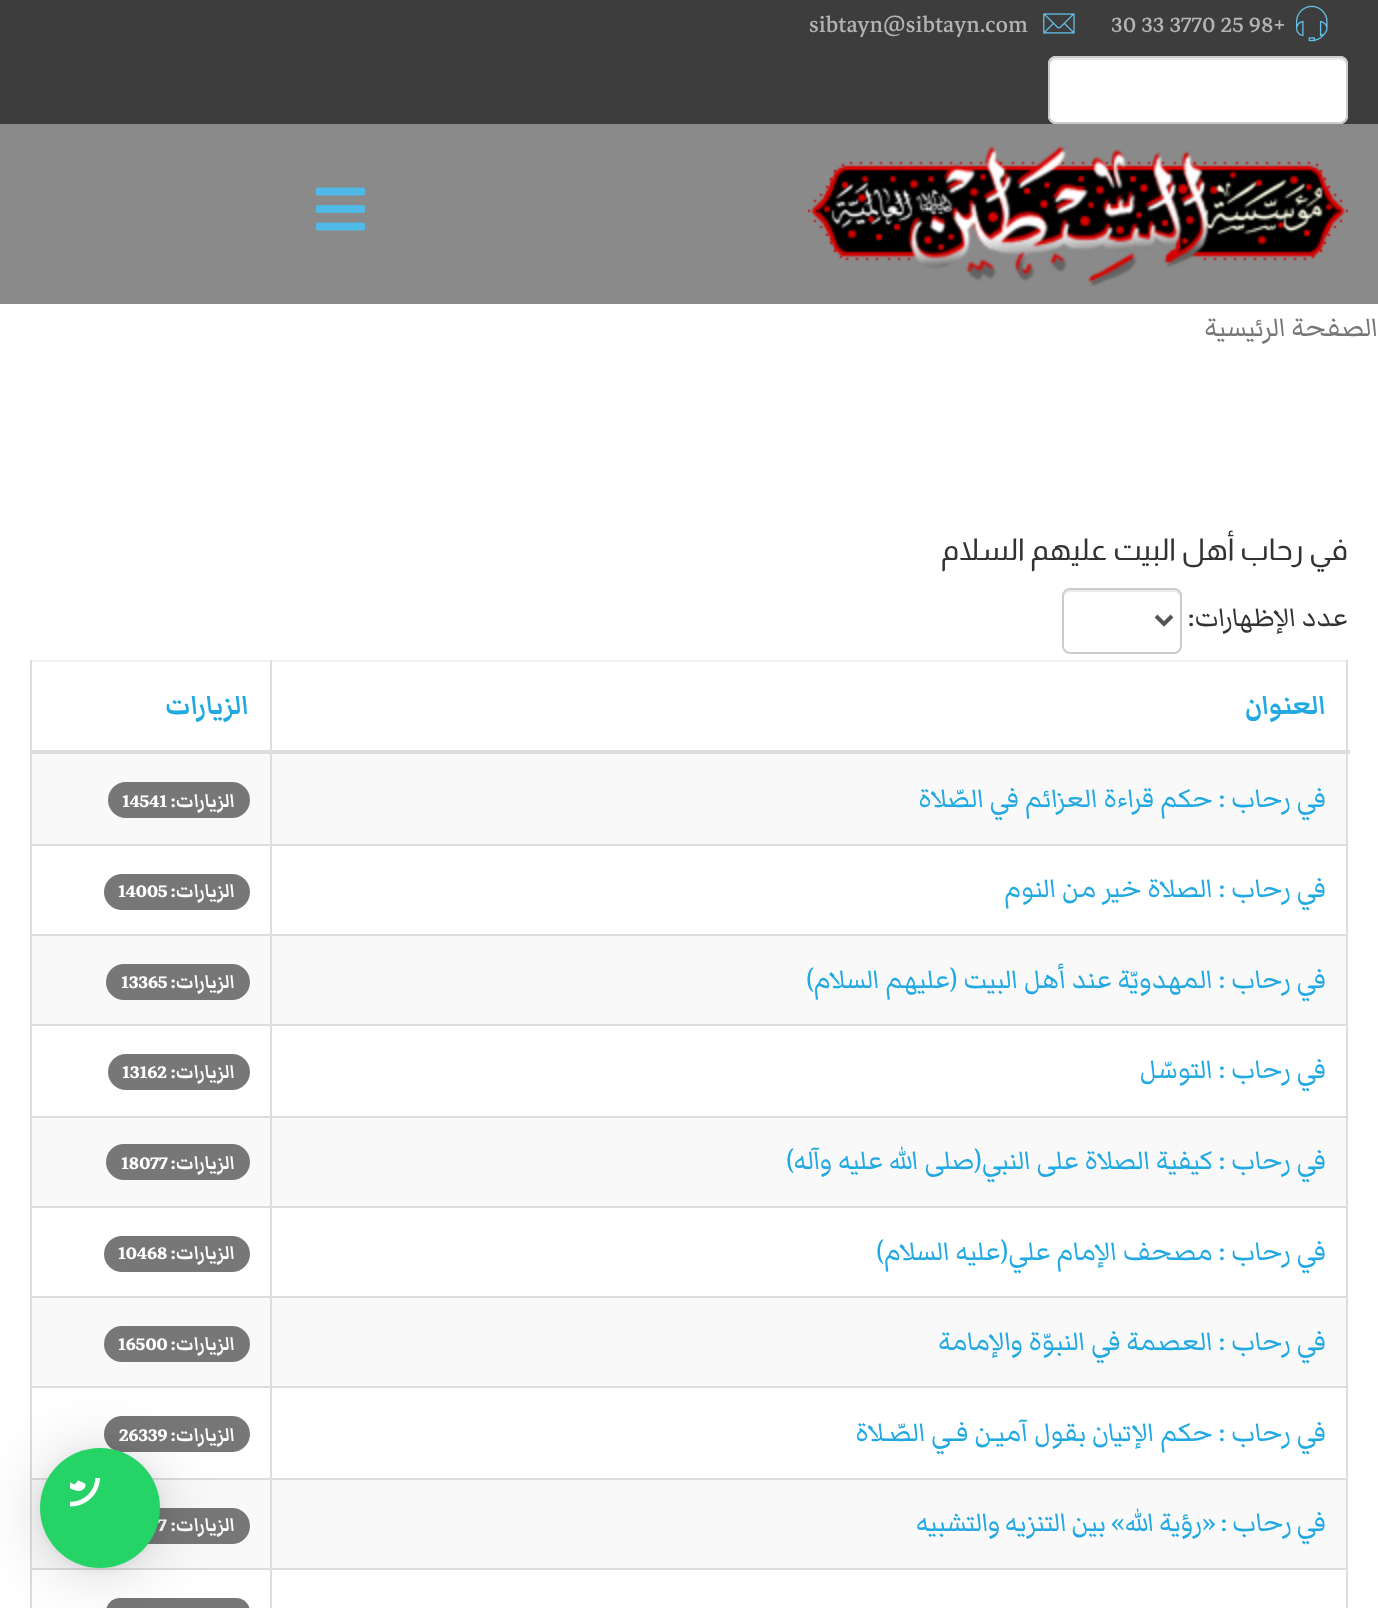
<!DOCTYPE html>
<meta charset="utf-8">
<style>body { margin: 0 } canvas { display: block }</style>
<canvas id="canvas" width="1378" height="1608"></canvas>
<script type="module">
  const canvas = document.getElementById("canvas");
  const ctx = canvas.getContext("2d");
  ctx.miterLimit = 4;
  ctx.fontKerning = "normal";
  async function loadImage(src) {
    const img = new Image();
    img.src = src;
    await img.decode();
    return img;
  }

  ctx.fillStyle = "#ffffff";
  ctx.fillRect(0, 0, 1378, 1608);
  ctx.fillStyle = "#3d3d3d";
  ctx.fillRect(0, 0, 1378, 124);
  ctx.drawImage(await loadImage("img1.png"), 1296, 5, 32, 37);
  ctx.font = "30.25px Markazi Text";
  ctx.fillStyle = "#b3b3b3";
  ctx.fillText("30 33 3770 25 98+", 1111, 32);
  ctx.drawImage(await loadImage("img2.png"), 1043, 13, 32, 21);
  ctx.fillText("sibtayn@sibtayn.com", 809, 32);
  ctx.fillStyle = "#ffffff";
  ctx.beginPath();
  ctx.roundRect(1048, 56, 300, 68, 8);
  ctx.fill();
  ctx.fillStyle = "#ececec";
  ctx.beginPath();
  ctx.moveTo(1056, 60);
  ctx.lineTo(1340, 60);
  ctx.bezierCurveTo(1343, 60, 1346, 63, 1346, 66);
  ctx.lineTo(1346, 64);
  ctx.bezierCurveTo(1346, 61, 1343, 58, 1340, 58);
  ctx.lineTo(1056, 58);
  ctx.bezierCurveTo(1053, 58, 1050, 61, 1050, 64);
  ctx.lineTo(1050, 66);
  ctx.bezierCurveTo(1050, 63, 1053, 60, 1056, 60);
  ctx.closePath();
  ctx.fill();
  ctx.beginPath();
  ctx.roundRect(1049, 57, 298, 66, 7);
  ctx.strokeStyle = "#cccccc";
  ctx.lineWidth = 2;
  ctx.stroke();
  ctx.fillStyle = "#8a8a8a";
  ctx.fillRect(0, 124, 1378, 180);
  ctx.drawImage(await loadImage("img3.png"), 808, 145, 540, 142);
  ctx.drawImage(await loadImage("img4.png"), 316, 187, 49, 44);
  ctx.direction = "rtl";
  ctx.font = "34px Markazi Text";
  ctx.fillStyle = "#777777";
  ctx.fillText("الصفحة الرئيسية", 1378, 336);
  ctx.font = "30px Almarai";
  ctx.fillStyle = "#333333";
  ctx.fillText("في رحاب أهل البيت عليهم السلام", 1348, 560);
  ctx.font = "34px Markazi Text";
  ctx.fillText("عدد الإظهارات:", 1348, 626);
  ctx.fillStyle = "#ececec";
  ctx.beginPath();
  ctx.moveTo(1070, 592);
  ctx.lineTo(1174, 592);
  ctx.bezierCurveTo(1177, 592, 1180, 595, 1180, 598);
  ctx.lineTo(1180, 596);
  ctx.bezierCurveTo(1180, 593, 1177, 590, 1174, 590);
  ctx.lineTo(1070, 590);
  ctx.bezierCurveTo(1067, 590, 1064, 593, 1064, 596);
  ctx.lineTo(1064, 598);
  ctx.bezierCurveTo(1064, 595, 1067, 592, 1070, 592);
  ctx.closePath();
  ctx.fill();
  ctx.beginPath();
  ctx.roundRect(1063, 589, 118, 64, 7);
  ctx.stroke();
  ctx.beginPath();
  ctx.moveTo(1156, 616);
  ctx.lineTo(1164, 624);
  ctx.lineTo(1172, 616);
  ctx.strokeStyle = "#555555";
  ctx.lineWidth = 4;
  ctx.stroke();
  ctx.fillStyle = "#f2f2f2";
  ctx.fillRect(30, 660, 1318, 2);
  ctx.font = "bold 34px Markazi Text";
  ctx.fillStyle = "#22a9e1";
  ctx.fillText("العنوان", 1326, 714);
  ctx.fillStyle = "#f9f9f9";
  ctx.fillRect(32, 754, 1314, 90);
  ctx.fillStyle = "#dddddd";
  ctx.fillRect(30, 844, 242, 2);
  ctx.fillRect(30, 934, 242, 2);
  ctx.fillStyle = "#f9f9f9";
  ctx.fillRect(32, 936, 1314, 88);
  ctx.fillStyle = "#dddddd";
  ctx.fillRect(30, 1024, 242, 2);
  ctx.fillRect(30, 1116, 242, 2);
  ctx.fillStyle = "#f9f9f9";
  ctx.fillRect(32, 1118, 1314, 88);
  ctx.fillStyle = "#dddddd";
  ctx.fillRect(30, 1206, 242, 2);
  ctx.fillRect(30, 1296, 242, 2);
  ctx.fillStyle = "#f9f9f9";
  ctx.fillRect(32, 1298, 1314, 88);
  ctx.fillStyle = "#dddddd";
  ctx.fillRect(30, 1386, 242, 2);
  ctx.fillRect(30, 1478, 242, 2);
  ctx.fillStyle = "#f9f9f9";
  ctx.fillRect(32, 1480, 1314, 88);
  ctx.fillStyle = "#dddddd";
  ctx.fillRect(30, 1568, 242, 2);
  ctx.fillRect(270, 1568, 2, 40);
  ctx.fillRect(270, 1568, 1078, 2);
  ctx.fillRect(270, 1478, 2, 92);
  ctx.fillRect(270, 1478, 1078, 2);
  ctx.fillRect(270, 1386, 2, 94);
  ctx.fillRect(270, 1386, 1078, 2);
  ctx.fillRect(270, 1296, 2, 92);
  ctx.fillRect(270, 1296, 1078, 2);
  ctx.fillRect(270, 1206, 2, 92);
  ctx.fillRect(270, 1206, 1078, 2);
  ctx.fillRect(270, 1116, 2, 92);
  ctx.fillRect(270, 1116, 1078, 2);
  ctx.fillRect(270, 1024, 2, 94);
  ctx.fillRect(270, 1024, 1078, 2);
  ctx.fillRect(270, 934, 2, 92);
  ctx.fillRect(270, 934, 1078, 2);
  ctx.fillRect(270, 844, 2, 92);
  ctx.fillRect(270, 844, 1078, 2);
  ctx.fillRect(270, 660, 2, 186);
  ctx.fillRect(1346, 1568, 2, 40);
  ctx.fillRect(1346, 1478, 2, 92);
  ctx.fillRect(1346, 1386, 2, 94);
  ctx.fillRect(1346, 1296, 2, 92);
  ctx.fillRect(1346, 1206, 2, 92);
  ctx.fillRect(1346, 1116, 2, 92);
  ctx.fillRect(1346, 1024, 2, 94);
  ctx.fillRect(1346, 934, 2, 92);
  ctx.fillRect(1346, 660, 2, 276);
  ctx.fillRect(30, 1568, 2, 40);
  ctx.fillRect(30, 1478, 2, 92);
  ctx.fillRect(30, 1386, 2, 94);
  ctx.fillRect(30, 1296, 2, 92);
  ctx.fillRect(30, 1206, 2, 92);
  ctx.fillRect(30, 1116, 2, 92);
  ctx.fillRect(30, 1024, 2, 94);
  ctx.fillRect(30, 934, 2, 92);
  ctx.fillRect(30, 660, 2, 276);
  ctx.fillRect(30, 750, 1320, 4);
  ctx.fillStyle = "#22a9e1";
  ctx.fillText("الزيارات", 249, 714);
  ctx.font = "34px Markazi Text";
  ctx.fillText("في رحاب : حكم قراءة العزائم في الصّلاة", 1326, 807);
  ctx.fillStyle = "#777777";
  ctx.beginPath();
  ctx.roundRect(108, 782, 142, 36, 18);
  ctx.fill();
  ctx.font = "bold 24px Markazi Text";
  ctx.fillStyle = "#ffffff";
  ctx.fillText("الزيارات:", 235, 807);
  ctx.direction = "ltr";
  ctx.fillText("14541", 122, 807);
  ctx.direction = "rtl";
  ctx.font = "34px Markazi Text";
  ctx.fillStyle = "#22a9e1";
  ctx.fillText("في رحاب : الصلاة خير من النوم", 1326, 897);
  ctx.fillStyle = "#777777";
  ctx.beginPath();
  ctx.roundRect(104, 874, 146, 36, 18);
  ctx.fill();
  ctx.font = "bold 24px Markazi Text";
  ctx.fillStyle = "#ffffff";
  ctx.fillText("الزيارات:", 235, 897);
  ctx.direction = "ltr";
  ctx.fillText("14005", 118, 897);
  ctx.direction = "rtl";
  ctx.font = "34px Markazi Text";
  ctx.fillStyle = "#22a9e1";
  ctx.fillText("في رحاب : المهدويّة عند أهل البيت (عليهم السلام)", 1326, 988);
  ctx.fillStyle = "#777777";
  ctx.beginPath();
  ctx.roundRect(106, 964, 144, 36, 18);
  ctx.fill();
  ctx.font = "bold 24px Markazi Text";
  ctx.fillStyle = "#ffffff";
  ctx.fillText("الزيارات:", 235, 988);
  ctx.direction = "ltr";
  ctx.fillText("13365", 121, 988);
  ctx.direction = "rtl";
  ctx.font = "34px Markazi Text";
  ctx.fillStyle = "#22a9e1";
  ctx.fillText("في رحاب : التوسّل", 1326, 1078);
  ctx.fillStyle = "#777777";
  ctx.beginPath();
  ctx.roundRect(108, 1054, 142, 36, 18);
  ctx.fill();
  ctx.font = "bold 24px Markazi Text";
  ctx.fillStyle = "#ffffff";
  ctx.fillText("الزيارات:", 235, 1078);
  ctx.direction = "ltr";
  ctx.fillText("13162", 122, 1078);
  ctx.direction = "rtl";
  ctx.font = "34px Markazi Text";
  ctx.fillStyle = "#22a9e1";
  ctx.fillText("في رحاب : كيفية الصلاة على النبي(صلى الله عليه وآله)", 1326, 1169);
  ctx.fillStyle = "#777777";
  ctx.beginPath();
  ctx.roundRect(106, 1144, 144, 36, 18);
  ctx.fill();
  ctx.font = "bold 24px Markazi Text";
  ctx.fillStyle = "#ffffff";
  ctx.fillText("الزيارات:", 235, 1169);
  ctx.direction = "ltr";
  ctx.fillText("18077", 121, 1169);
  ctx.direction = "rtl";
  ctx.font = "34px Markazi Text";
  ctx.fillStyle = "#22a9e1";
  ctx.fillText("في رحاب : مصحف الإمام علي(عليه السلام)", 1326, 1260);
  ctx.fillStyle = "#777777";
  ctx.beginPath();
  ctx.roundRect(104, 1236, 146, 36, 18);
  ctx.fill();
  ctx.font = "bold 24px Markazi Text";
  ctx.fillStyle = "#ffffff";
  ctx.fillText("الزيارات:", 235, 1259);
  ctx.direction = "ltr";
  ctx.fillText("10468", 118, 1259);
  ctx.direction = "rtl";
  ctx.font = "34px Markazi Text";
  ctx.fillStyle = "#22a9e1";
  ctx.fillText("في رحاب : العصمة في النبوّة والإمامة", 1326, 1350);
  ctx.fillStyle = "#777777";
  ctx.beginPath();
  ctx.roundRect(104, 1326, 146, 36, 18);
  ctx.fill();
  ctx.font = "bold 24px Markazi Text";
  ctx.fillStyle = "#ffffff";
  ctx.fillText("الزيارات:", 235, 1350);
  ctx.direction = "ltr";
  ctx.fillText("16500", 118, 1350);
  ctx.direction = "rtl";
  ctx.font = "34px Markazi Text";
  ctx.fillStyle = "#22a9e1";
  ctx.fillText("في رحاب : حكم الإتيان بقول آميـن فـي الصّـلاة", 1326, 1441);
  ctx.fillStyle = "#777777";
  ctx.beginPath();
  ctx.roundRect(104, 1416, 146, 36, 18);
  ctx.fill();
  ctx.font = "bold 24px Markazi Text";
  ctx.fillStyle = "#ffffff";
  ctx.fillText("الزيارات:", 235, 1441);
  ctx.direction = "ltr";
  ctx.fillText("26339", 119, 1441);
  ctx.wordSpacing = "-1px";
  ctx.direction = "rtl";
  ctx.font = "34px Markazi Text";
  ctx.fillStyle = "#22a9e1";
  ctx.fillText("في رحاب : «رؤية الله» بين التنزيه والتشبيه", 1326, 1531);
  ctx.fillStyle = "#777777";
  ctx.beginPath();
  ctx.roundRect(104, 1508, 146, 36, 18);
  ctx.fill();
  ctx.wordSpacing = "0px";
  ctx.font = "bold 24px Markazi Text";
  ctx.fillStyle = "#ffffff";
  ctx.fillText("الزيارات:", 235, 1531);
  ctx.direction = "ltr";
  ctx.fillText("7", 158, 1531);
  ctx.fillStyle = "#777777";
  ctx.beginPath();
  ctx.roundRect(106, 1598, 144, 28, 18);
  ctx.fill();
  ctx.fillStyle = "rgba(0, 0, 0, 0.16)";
  ctx.filter = "blur(32px)";
  ctx.beginPath();
  ctx.roundRect(40, 1452, 120, 120, 60);
  ctx.fill();
  ctx.filter = "none";
  ctx.fillStyle = "rgba(0, 0, 0, 0.06)";
  ctx.filter = "blur(6px)";
  ctx.beginPath();
  ctx.roundRect(40, 1450, 120, 120, 60);
  ctx.fill();
  ctx.filter = "none";
  ctx.fillStyle = "#25d366";
  ctx.beginPath();
  ctx.arc(100, 1508, 60, 0, Math.PI * 2);
  ctx.fill();
  ctx.drawImage(await loadImage("img5.png"), 70, 1478, 30, 29);
</script>
